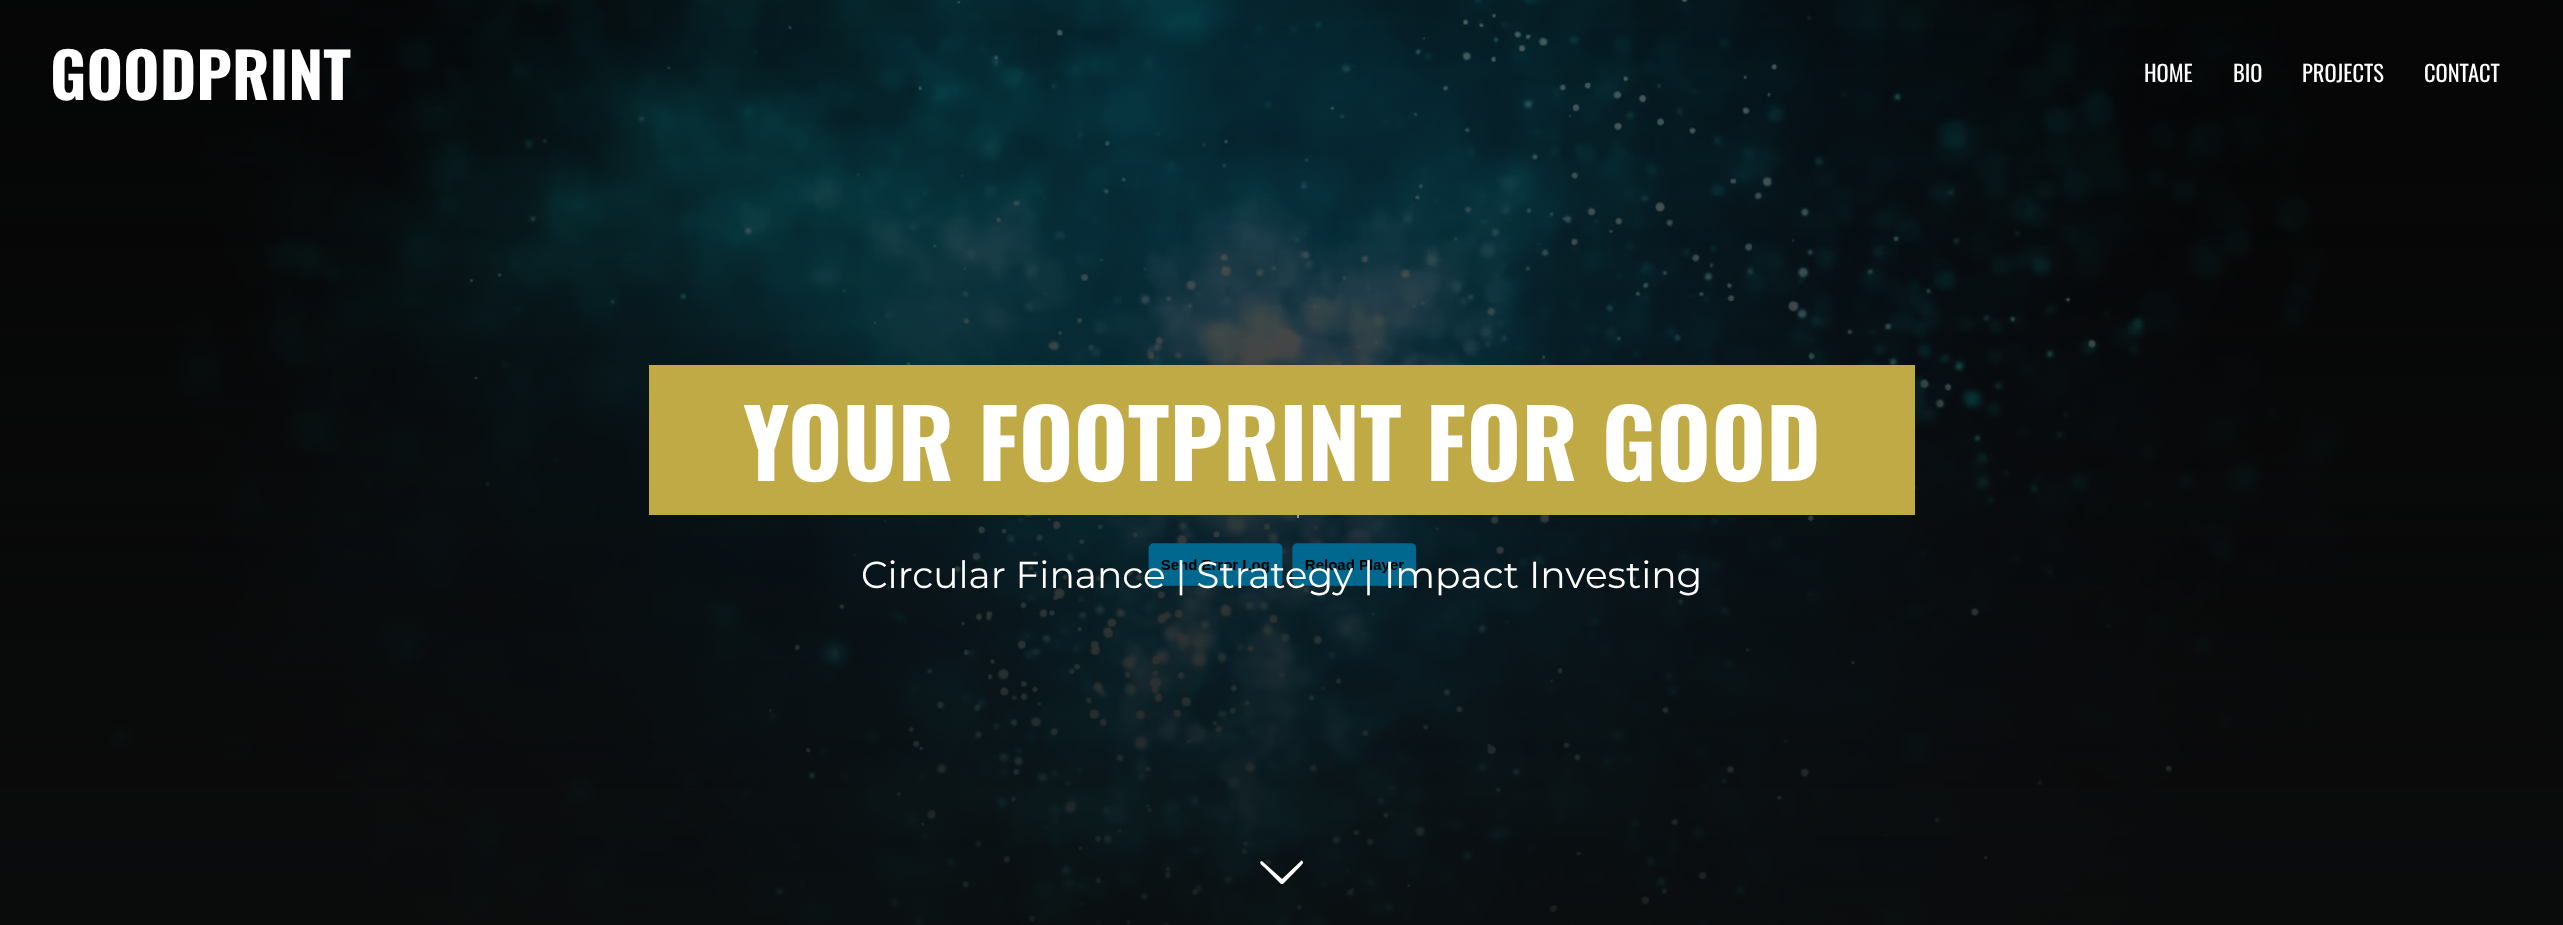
<!DOCTYPE html>
<meta charset="utf-8">
<style>body { margin: 0 } canvas { display: block }</style>
<canvas id="canvas" width="2563" height="925"></canvas>
<script type="module">
  const canvas = document.getElementById("canvas");
  const ctx = canvas.getContext("2d");
  ctx.miterLimit = 4;
  ctx.fontKerning = "normal";
  async function loadImage(src) {
    const img = new Image();
    img.src = src;
    await img.decode();
    return img;
  }

  ctx.fillStyle = "#ffffff";
  ctx.fillRect(0, 0, 2563, 925);
  ctx.drawImage(await loadImage("img1.png"), 0, 0, 2563, 925);
  ctx.drawImage(await loadImage("img2.png"), 0, 0, 2563, 925);
  ctx.font = "bold 62.5px Oswald";
  ctx.fillText("GOODPRINT", 50, 100);
  ctx.font = "22.5px Oswald";
  ctx.fillText("HOME", 2144, 82);
  ctx.fillText("BIO", 2233, 82);
  ctx.fillText("PROJECTS", 2302, 82);
  ctx.fillText("CONTACT", 2424, 82);
  ctx.fillStyle = "#c0aa46";
  ctx.fillRect(649, 365, 1266, 150);
  ctx.font = "bold 93.75px Oswald";
  ctx.fillStyle = "#ffffff";
  ctx.fillText("YOUR FOOTPRINT FOR GOOD", 743, 481);
  ctx.font = "37.5px Montserrat";
  ctx.fillText("Circular Finance | Strategy | Impact Investing", 861, 588);
  ctx.beginPath();
  ctx.moveTo(1263, 862);
  ctx.lineTo(1282, 879);
  ctx.lineTo(1301, 861);
  ctx.bezierCurveTo(1302, 860, 1303, 861, 1303, 863);
  ctx.bezierCurveTo(1303, 864, 1285, 882, 1283, 884);
  ctx.lineTo(1281, 884);
  ctx.lineTo(1264, 867);
  ctx.bezierCurveTo(1264, 867, 1257, 862, 1262, 861);
  ctx.closePath();
  ctx.fill();
</script>
